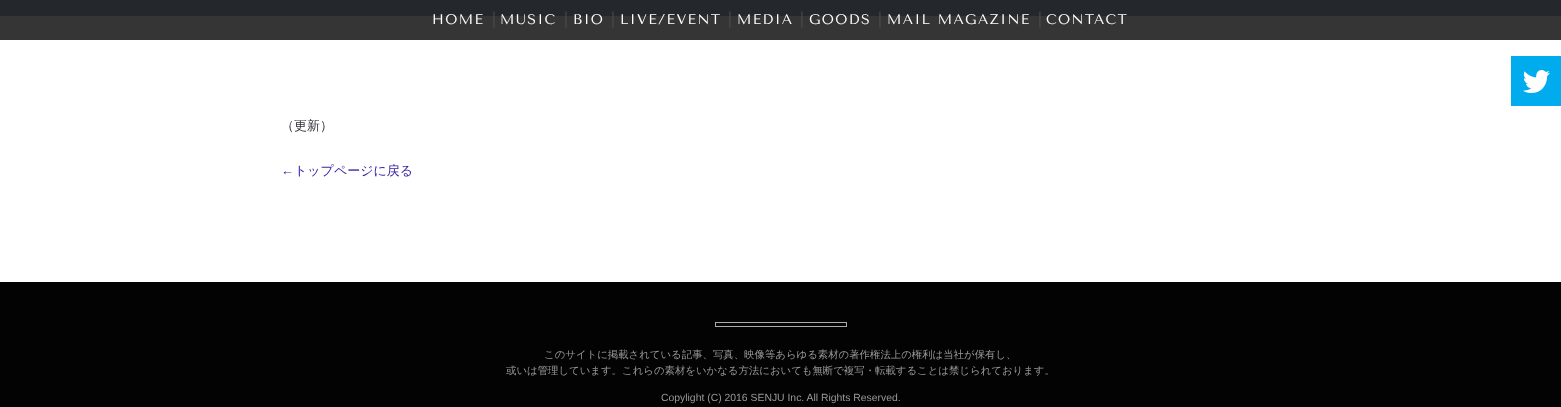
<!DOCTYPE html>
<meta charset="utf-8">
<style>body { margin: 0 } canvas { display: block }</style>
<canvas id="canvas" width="1561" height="407"></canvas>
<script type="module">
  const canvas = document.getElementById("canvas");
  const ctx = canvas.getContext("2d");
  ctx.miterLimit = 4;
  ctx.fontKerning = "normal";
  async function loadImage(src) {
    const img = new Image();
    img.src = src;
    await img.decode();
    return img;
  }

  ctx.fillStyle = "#ffffff";
  ctx.fillRect(0, 0, 1561, 407);
  ctx.fillStyle = "#353536";
  ctx.fillRect(0, 16, 1561, 24);
  ctx.fillStyle = "#24272b";
  ctx.fillRect(0, 0, 1561, 16);
  ctx.letterSpacing = "1.4px";
  ctx.font = "14px Tenor Sans";
  ctx.fillStyle = "#ffffff";
  ctx.fillText("HOME", 432, 24);
  ctx.fillStyle = "#4b4e56";
  ctx.fillText("|", 492, 24);
  ctx.fillStyle = "#ffffff";
  ctx.fillText("MUSIC", 500, 24);
  ctx.fillStyle = "#4b4e56";
  ctx.fillText("|", 564, 24);
  ctx.fillStyle = "#ffffff";
  ctx.fillText("BIO", 573, 24);
  ctx.fillStyle = "#4b4e56";
  ctx.fillText("|", 611, 24);
  ctx.fillStyle = "#ffffff";
  ctx.fillText("LIVE/EVENT", 620, 24);
  ctx.fillStyle = "#4b4e56";
  ctx.fillText("|", 728, 24);
  ctx.fillStyle = "#ffffff";
  ctx.fillText("MEDIA", 737, 24);
  ctx.fillStyle = "#4b4e56";
  ctx.fillText("|", 800, 24);
  ctx.fillStyle = "#ffffff";
  ctx.fillText("GOODS", 809, 24);
  ctx.fillStyle = "#4b4e56";
  ctx.fillText("|", 878, 24);
  ctx.fillStyle = "#ffffff";
  ctx.fillText("MAIL MAGAZINE", 887, 24);
  ctx.fillStyle = "#4b4e56";
  ctx.fillText("|", 1038, 24);
  ctx.fillStyle = "#ffffff";
  ctx.fillText("CONTACT", 1046, 24);
  ctx.drawImage(await loadImage("img1.png"), 1511, 56, 50, 50);
  ctx.letterSpacing = "0px";
  ctx.font = "500 13px WenQuanYi Zen Hei";
  ctx.fillStyle = "#33323c";
  ctx.fillText("（更新）", 281, 130);
  ctx.font = "13px Liberation Sans";
  ctx.fillStyle = "#3a21a5";
  ctx.fillText("←", 281, 175);
  ctx.font = "500 13px WenQuanYi Zen Hei";
  ctx.fillText("トップページに戻る", 294, 175);
  ctx.fillStyle = "#030304";
  ctx.fillRect(0, 282, 1561, 125);
  ctx.strokeStyle = "#aaaaaa";
  ctx.strokeRect(715.5, 322.5, 131, 4);
  ctx.font = "500 10.4px WenQuanYi Zen Hei";
  ctx.fillStyle = "#999999";
  ctx.fillText("このサイトに掲載されている記事、写真、映像等あらゆる素材の著作権法上の権利は当社が保有し、", 544, 358);
  ctx.fillText("或いは管理しています。これらの素材をいかなる方法においても無断で複写・転載することは禁じられております。", 506, 374);
  ctx.font = "10.4px Liberation Sans";
  ctx.fillText("Copylight (C) 2016 SENJU Inc. All Rights Reserved.", 661, 401);
</script>
